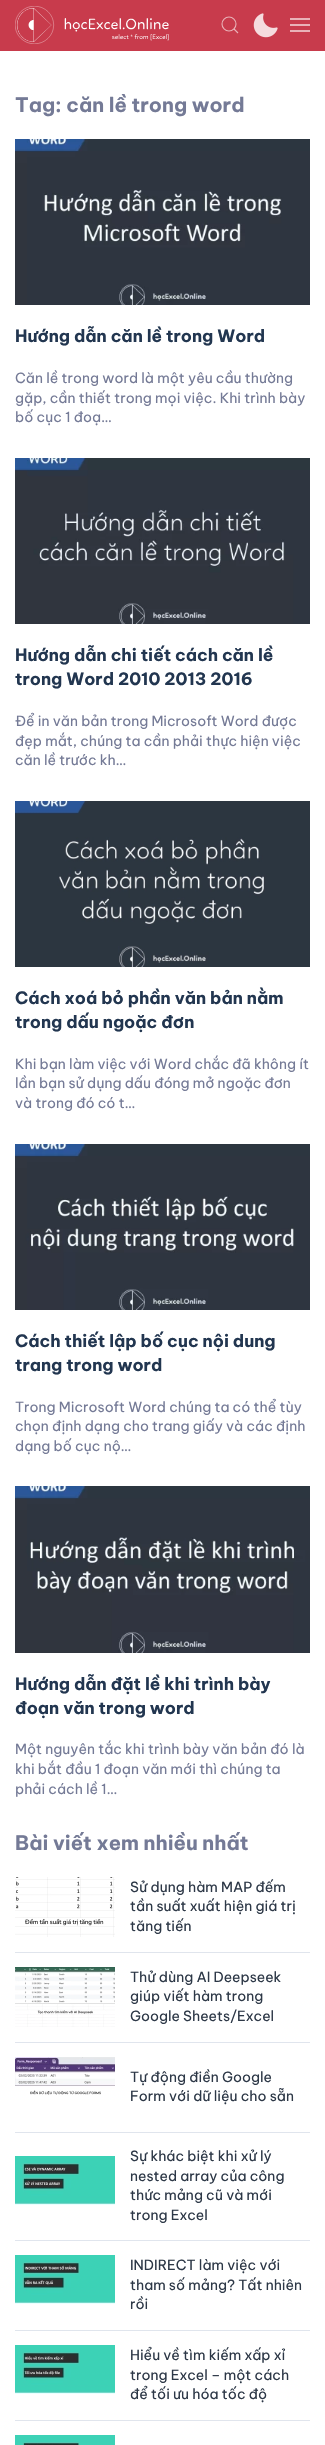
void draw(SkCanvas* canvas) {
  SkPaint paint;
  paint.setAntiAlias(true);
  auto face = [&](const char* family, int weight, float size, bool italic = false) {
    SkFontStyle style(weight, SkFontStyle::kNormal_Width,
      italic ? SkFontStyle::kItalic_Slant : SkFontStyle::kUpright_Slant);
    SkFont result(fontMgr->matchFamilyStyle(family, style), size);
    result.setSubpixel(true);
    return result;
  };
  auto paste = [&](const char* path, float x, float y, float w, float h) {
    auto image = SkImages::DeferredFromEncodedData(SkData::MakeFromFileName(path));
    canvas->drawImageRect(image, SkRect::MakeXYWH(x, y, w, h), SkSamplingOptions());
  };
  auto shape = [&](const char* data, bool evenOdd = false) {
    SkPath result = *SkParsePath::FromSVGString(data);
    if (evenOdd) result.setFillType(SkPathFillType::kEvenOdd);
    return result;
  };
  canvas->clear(0xffffffff);
  paint.setColor(0xffc83b4c);
  canvas->drawRect(SkRect::MakeXYWH(0, 0, 325, 51), paint);
  paste("img/1.png", 15, 6, 154, 38);
  paint.setStroke(true);
  paint.setStrokeWidth(1.1f);
  paint.setColor(0xffe9b1b7);
  canvas->drawCircle(229, 24, 7, paint);
  paint.setColor(0x99ffffff);
  canvas->drawPath(shape("M234 29L238 33Z"), paint);
  paste("img/2.png", 253, 13, 25, 25);
  paint.setStroke(false);
  {
    const struct { float x, y, w, h; SkColor color; } items[] = {
      {290, 18, 20, 2, 0xffe9b1b7},
      {290, 24, 20, 2, 0xffe9b1b7},
      {290, 30, 20, 2, 0xffe9b1b7},
    };
    for (auto [x, y, w, h, color] : items) {
      paint.setColor(color);
      canvas->drawRect(SkRect::MakeXYWH(x, y, w, h), paint);
    }
  }
  paste("img/3.png", 15, 139, 295, 166);
  paste("img/4.png", 15, 458, 295, 166);
  paste("img/5.png", 15, 801, 295, 166);
  paste("img/6.png", 15, 1144, 295, 166);
  paste("img/7.png", 15, 1486, 295, 167);
  paste("img/8.png", 15, 1877, 100, 60);
  paint.setColor(0xffe0e5ed);
  canvas->drawRect(SkRect::MakeXYWH(15, 1952, 295, 1), paint);
  paste("img/9.png", 15, 1967, 100, 60);
  canvas->drawRect(SkRect::MakeXYWH(15, 2042, 295, 1), paint);
  paste("img/10.png", 15, 2057, 100, 38);
  canvas->drawRect(SkRect::MakeXYWH(15, 2132, 295, 1), paint);
  paste("img/11.png", 15, 2156, 100, 49);
  canvas->drawRect(SkRect::MakeXYWH(15, 2240, 295, 1), paint);
  paste("img/12.png", 15, 2255, 100, 49);
  canvas->drawRect(SkRect::MakeXYWH(15, 2330, 295, 1), paint);
  paste("img/13.png", 15, 2345, 100, 49);
  canvas->drawRect(SkRect::MakeXYWH(15, 2420, 295, 1), paint);
  paste("img/14.png", 15, 2435, 100, 10);
  auto f0 = face("Be Vietnam Pro", 700, 20);
  paint.setColor(0xff747a96);
  canvas->drawString("Tag: căn lề trong word", 15, 112, f0, paint);
  auto f1 = face("Be Vietnam Pro", 700, 17);
  paint.setColor(0xff223650);
  canvas->drawString("Hướng dẫn căn lề trong Word", 15, 342, f1, paint);
  auto f2 = face("Be Vietnam Pro", 400, 14);
  paint.setColor(0xff747a96);
  {
    const struct { const char* s; float x, y; } items[] = {
      {"Căn lề trong word là một yêu cầu thường", 15, 383},
      {"gặp, cần thiết trong mọi việc. Khi trình bày", 15, 403},
      {"bố cục 1 đoạ…", 15, 422},
    };
    for (auto [s, x, y] : items) {
      canvas->drawString(s, x, y, f2, paint);
    }
  }
  paint.setColor(0xff223650);
  canvas->drawString("Hướng dẫn chi tiết cách căn lề", 15, 661, f1, paint);
  canvas->drawString("trong Word 2010 2013 2016", 15, 685, f1, paint);
  paint.setColor(0xff747a96);
  {
    const struct { const char* s; float x, y; } items[] = {
      {"Để in văn bản trong Microsoft Word được", 15, 726},
      {"đẹp mắt, chúng ta cần phải thực hiện việc", 15, 746},
      {"căn lề trước kh…", 15, 765},
    };
    for (auto [s, x, y] : items) {
      canvas->drawString(s, x, y, f2, paint);
    }
  }
  paint.setColor(0xff223650);
  canvas->drawString("Cách xoá bỏ phần văn bản nằm", 15, 1004, f1, paint);
  canvas->drawString("trong dấu ngoặc đơn", 15, 1028, f1, paint);
  paint.setColor(0xff747a96);
  {
    const struct { const char* s; float x, y; } items[] = {
      {"Khi bạn làm việc với Word chắc đã không ít", 15, 1069},
      {"lần bạn sử dụng dấu đóng mở ngoặc đơn", 15, 1088},
      {"và trong đó có t…", 15, 1108},
    };
    for (auto [s, x, y] : items) {
      canvas->drawString(s, x, y, f2, paint);
    }
  }
  paint.setColor(0xff223650);
  canvas->drawString("Cách thiết lập bố cục nội dung", 15, 1347, f1, paint);
  canvas->drawString("trang trong word", 15, 1371, f1, paint);
  paint.setColor(0xff747a96);
  {
    const struct { const char* s; float x, y; } items[] = {
      {"Trong Microsoft Word chúng ta có thể tùy", 15, 1412},
      {"chọn định dạng cho trang giấy và các định", 15, 1431},
      {"dạng bố cục nộ…", 15, 1451},
    };
    for (auto [s, x, y] : items) {
      canvas->drawString(s, x, y, f2, paint);
    }
  }
  paint.setColor(0xff223650);
  canvas->drawString("Hướng dẫn đặt lề khi trình bày", 15, 1690, f1, paint);
  canvas->drawString("đoạn văn trong word", 15, 1714, f1, paint);
  paint.setColor(0xff747a96);
  {
    const struct { const char* s; float x, y; } items[] = {
      {"Một nguyên tắc khi trình bày văn bản đó là", 15, 1754},
      {"khi bắt đầu 1 đoạn văn mới thì chúng ta", 15, 1774},
      {"phải cách lề 1…", 15, 1794},
    };
    for (auto [s, x, y] : items) {
      canvas->drawString(s, x, y, f2, paint);
    }
  }
  canvas->drawString("Bài viết xem nhiều nhất", 15, 1850, f0, paint);
  paint.setColor(0xff2d3847);
  {
    const struct { const char* s; float x, y; } items[] = {
      {"Sử dụng hàm MAP đếm", 130, 1892},
      {"tần suất xuất hiện giá trị", 130, 1911},
      {"tăng tiến", 130, 1931},
      {"Thử dùng AI Deepseek", 130, 1982},
      {"giúp viết hàm trong", 130, 2001},
      {"Google Sheets/Excel", 130, 2021},
      {"Tự động điền Google", 130, 2082},
      {"Form với dữ liệu cho sẵn", 130, 2101},
      {"Sự khác biệt khi xử lý", 130, 2161},
      {"nested array của công", 130, 2181},
      {"thức mảng cũ và mới", 130, 2200},
      {"trong Excel", 130, 2220},
      {"INDIRECT làm việc với", 130, 2270},
      {"tham số mảng? Tất nhiên", 130, 2290},
      {"rồi", 130, 2309},
      {"Hiểu về tìm kiếm xấp xỉ", 130, 2360},
      {"trong Excel – một cách", 130, 2380},
      {"để tối ưu hóa tốc độ", 130, 2399},
    };
    for (auto [s, x, y] : items) {
      canvas->drawString(s, x, y, f2, paint);
    }
  }
}
